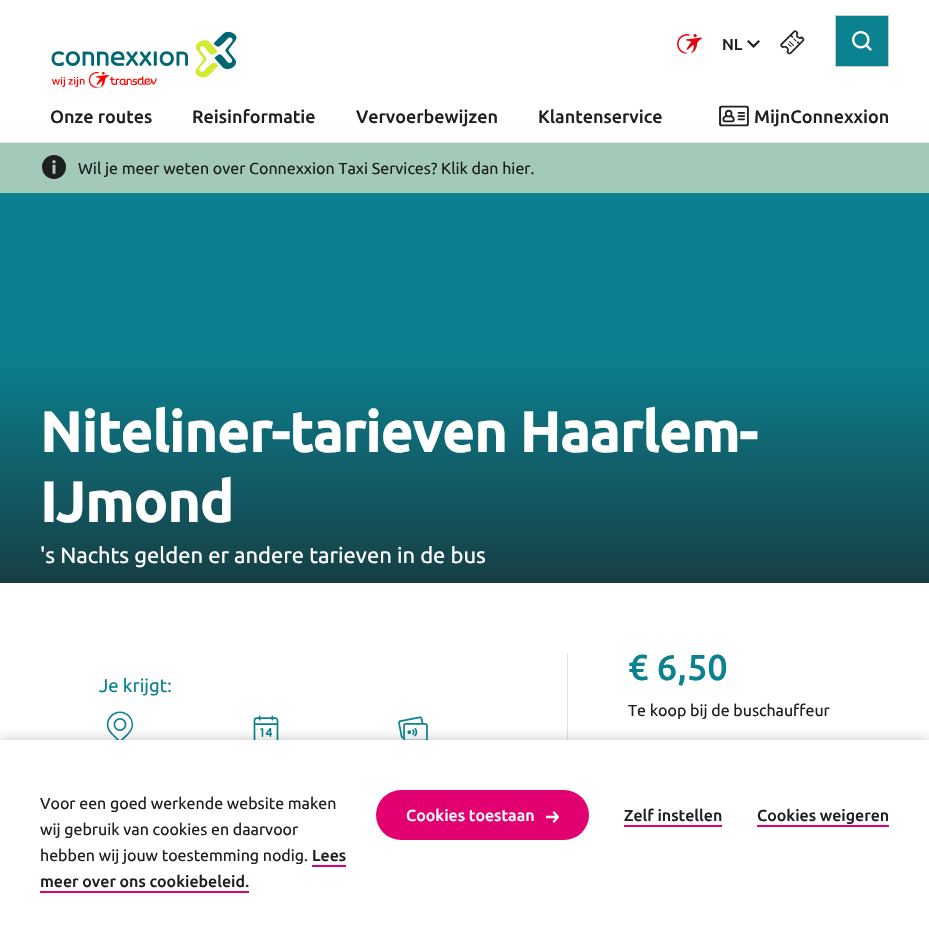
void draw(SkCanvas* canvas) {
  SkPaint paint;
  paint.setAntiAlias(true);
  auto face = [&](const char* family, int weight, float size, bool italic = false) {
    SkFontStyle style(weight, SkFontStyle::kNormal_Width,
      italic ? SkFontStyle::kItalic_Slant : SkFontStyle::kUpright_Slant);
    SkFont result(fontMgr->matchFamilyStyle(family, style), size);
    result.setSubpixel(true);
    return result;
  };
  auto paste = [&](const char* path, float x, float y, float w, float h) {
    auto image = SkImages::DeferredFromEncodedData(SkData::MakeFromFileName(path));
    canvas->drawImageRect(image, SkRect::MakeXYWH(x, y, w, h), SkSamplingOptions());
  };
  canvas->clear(0xffffffff);
  paint.setColor(0xffe2e2e2);
  canvas->drawRect(SkRect::MakeXYWH(0, 142, 929, 1), paint);
  paste("img/1.png", 677, 34, 25, 20);
  paste("img/2.png", 747, 40, 13, 8);
  paste("img/3.png", 780, 30, 25, 25);
  paint.setColor(0xff0b828f);
  canvas->drawRect(SkRect::MakeXYWH(835.5f, 15.5f, 53, 51), paint);
  paint.setStroke(true);
  paint.setStrokeWidth(1);
  paint.setColor(0xffcccccc);
  canvas->drawRect(SkRect::MakeXYWH(835.5f, 15.5f, 53, 51), paint);
  paste("img/4.png", 852, 31, 20, 20);
  paste("img/5.png", 51, 31, 186, 58);
  paste("img/6.png", 719, 105, 30, 22);
  paint.setStroke(false);
  paint.setColor(0xffa3cab8);
  canvas->drawRect(SkRect::MakeXYWH(0, 143, 929, 50), paint);
  paste("img/7.png", 42, 155, 24, 24);
  {
    const SkColor colors[] = {0xff0b8190, 0xff173f45};
    const float stops[] = {0.4f, 1};
    const SkPoint ends[] = {{465, 193}, {465, 583}};
    paint.setShader(SkGradientShader::MakeLinear(ends, colors, stops, 2, SkTileMode::kClamp));
    paint.setAlpha(255);
  }
  canvas->drawRect(SkRect::MakeXYWH(0, 193, 929, 390), paint);
  paste("img/8.png", 106, 711, 28, 29);
  paste("img/9.png", 253, 715, 26, 25);
  paste("img/10.png", 398, 716, 30, 24);
  paint.setShader(nullptr);
  paint.setColor(0xffe2e2e2);
  canvas->drawRect(SkRect::MakeXYWH(567, 653, 1, 87), paint);
  paint.setColor(0x731d1f20);
  paint.setMaskFilter(SkMaskFilter::MakeBlur(kNormal_SkBlurStyle, 7.5f));
  canvas->drawRect(SkRect::MakeXYWH(0, 744, 929, 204), paint);
  paint.setMaskFilter(nullptr);
  {
    const struct { float x, y, w, h; SkColor color; } items[] = {
      {0, 740, 929, 204, 0xffffffff},
      {312, 865, 34, 2, 0xffe20070},
      {40, 891, 209, 2, 0xffe20070},
    };
    for (auto [x, y, w, h, color] : items) {
      paint.setColor(color);
      canvas->drawRect(SkRect::MakeXYWH(x, y, w, h), paint);
    }
  }
  canvas->drawRoundRect(SkRect::MakeXYWH(376, 790, 213, 50), 25, 25, paint);
  paste("img/11.png", 546, 811, 13, 12);
  canvas->drawRect(SkRect::MakeXYWH(624, 825, 98, 2), paint);
  canvas->drawRect(SkRect::MakeXYWH(757, 825, 132, 2), paint);
  auto f0 = face("Ubuntu", 500, 16);
  paint.setColor(0xff1d1f20);
  canvas->drawString("NL", 722, 50, f0, paint);
  auto f1 = face("Ubuntu", 500, 18);
  {
    const struct { const char* s; float x, y; } items[] = {
      {"Onze routes", 50, 123},
      {"Reisinformatie", 192, 123},
      {"Vervoerbewijzen", 356, 123},
      {"Klantenservice", 538, 123},
      {"MijnConnexxion", 754, 123},
    };
    for (auto [s, x, y] : items) {
      canvas->drawString(s, x, y, f1, paint);
    }
  }
  auto f2 = face("Ubuntu", 400, 16);
  canvas->drawString("Wil je meer weten over Connexxion Taxi Services? Klik dan hier.", 78, 174, f2, paint);
  auto f3 = face("Ubuntu", 700, 56);
  paint.setColor(0xffffffff);
  canvas->drawString("Niteliner-tarieven Haarlem-", 40, 452, f3, paint);
  canvas->drawString("IJmond", 40, 522, f3, paint);
  auto f4 = face("Ubuntu", 400, 22);
  canvas->drawString("'s Nachts gelden er andere tarieven in de bus", 40, 563, f4, paint);
  auto f5 = face("Ubuntu", 400, 18.5f);
  paint.setColor(0xff0b828f);
  canvas->drawString("Je krijgt:", 99, 692, f5, paint);
  auto f6 = face("Ubuntu", 500, 36);
  canvas->drawString("€ 6,50", 628, 680, f6, paint);
  paint.setColor(0xff1d1f20);
  {
    const struct { const char* s; float x, y; } items[] = {
      {"Te koop bij de buschauffeur", 628, 716},
      {"Voor een goed werkende website maken", 40, 809},
      {"wij gebruik van cookies en daarvoor", 40, 835},
      {"hebben wij jouw toestemming nodig.", 40, 861},
    };
    for (auto [s, x, y] : items) {
      canvas->drawString(s, x, y, f2, paint);
    }
  }
  canvas->drawString("Lees", 312, 861, f0, paint);
  canvas->drawString("meer over ons cookiebeleid.", 40, 887, f0, paint);
  paint.setColor(0xffffffff);
  canvas->drawString("Cookies toestaan", 406, 821, f0, paint);
  paint.setColor(0xff1d1f20);
  canvas->drawString("Zelf instellen", 624, 821, f0, paint);
  canvas->drawString("Cookies weigeren", 757, 821, f0, paint);
}
